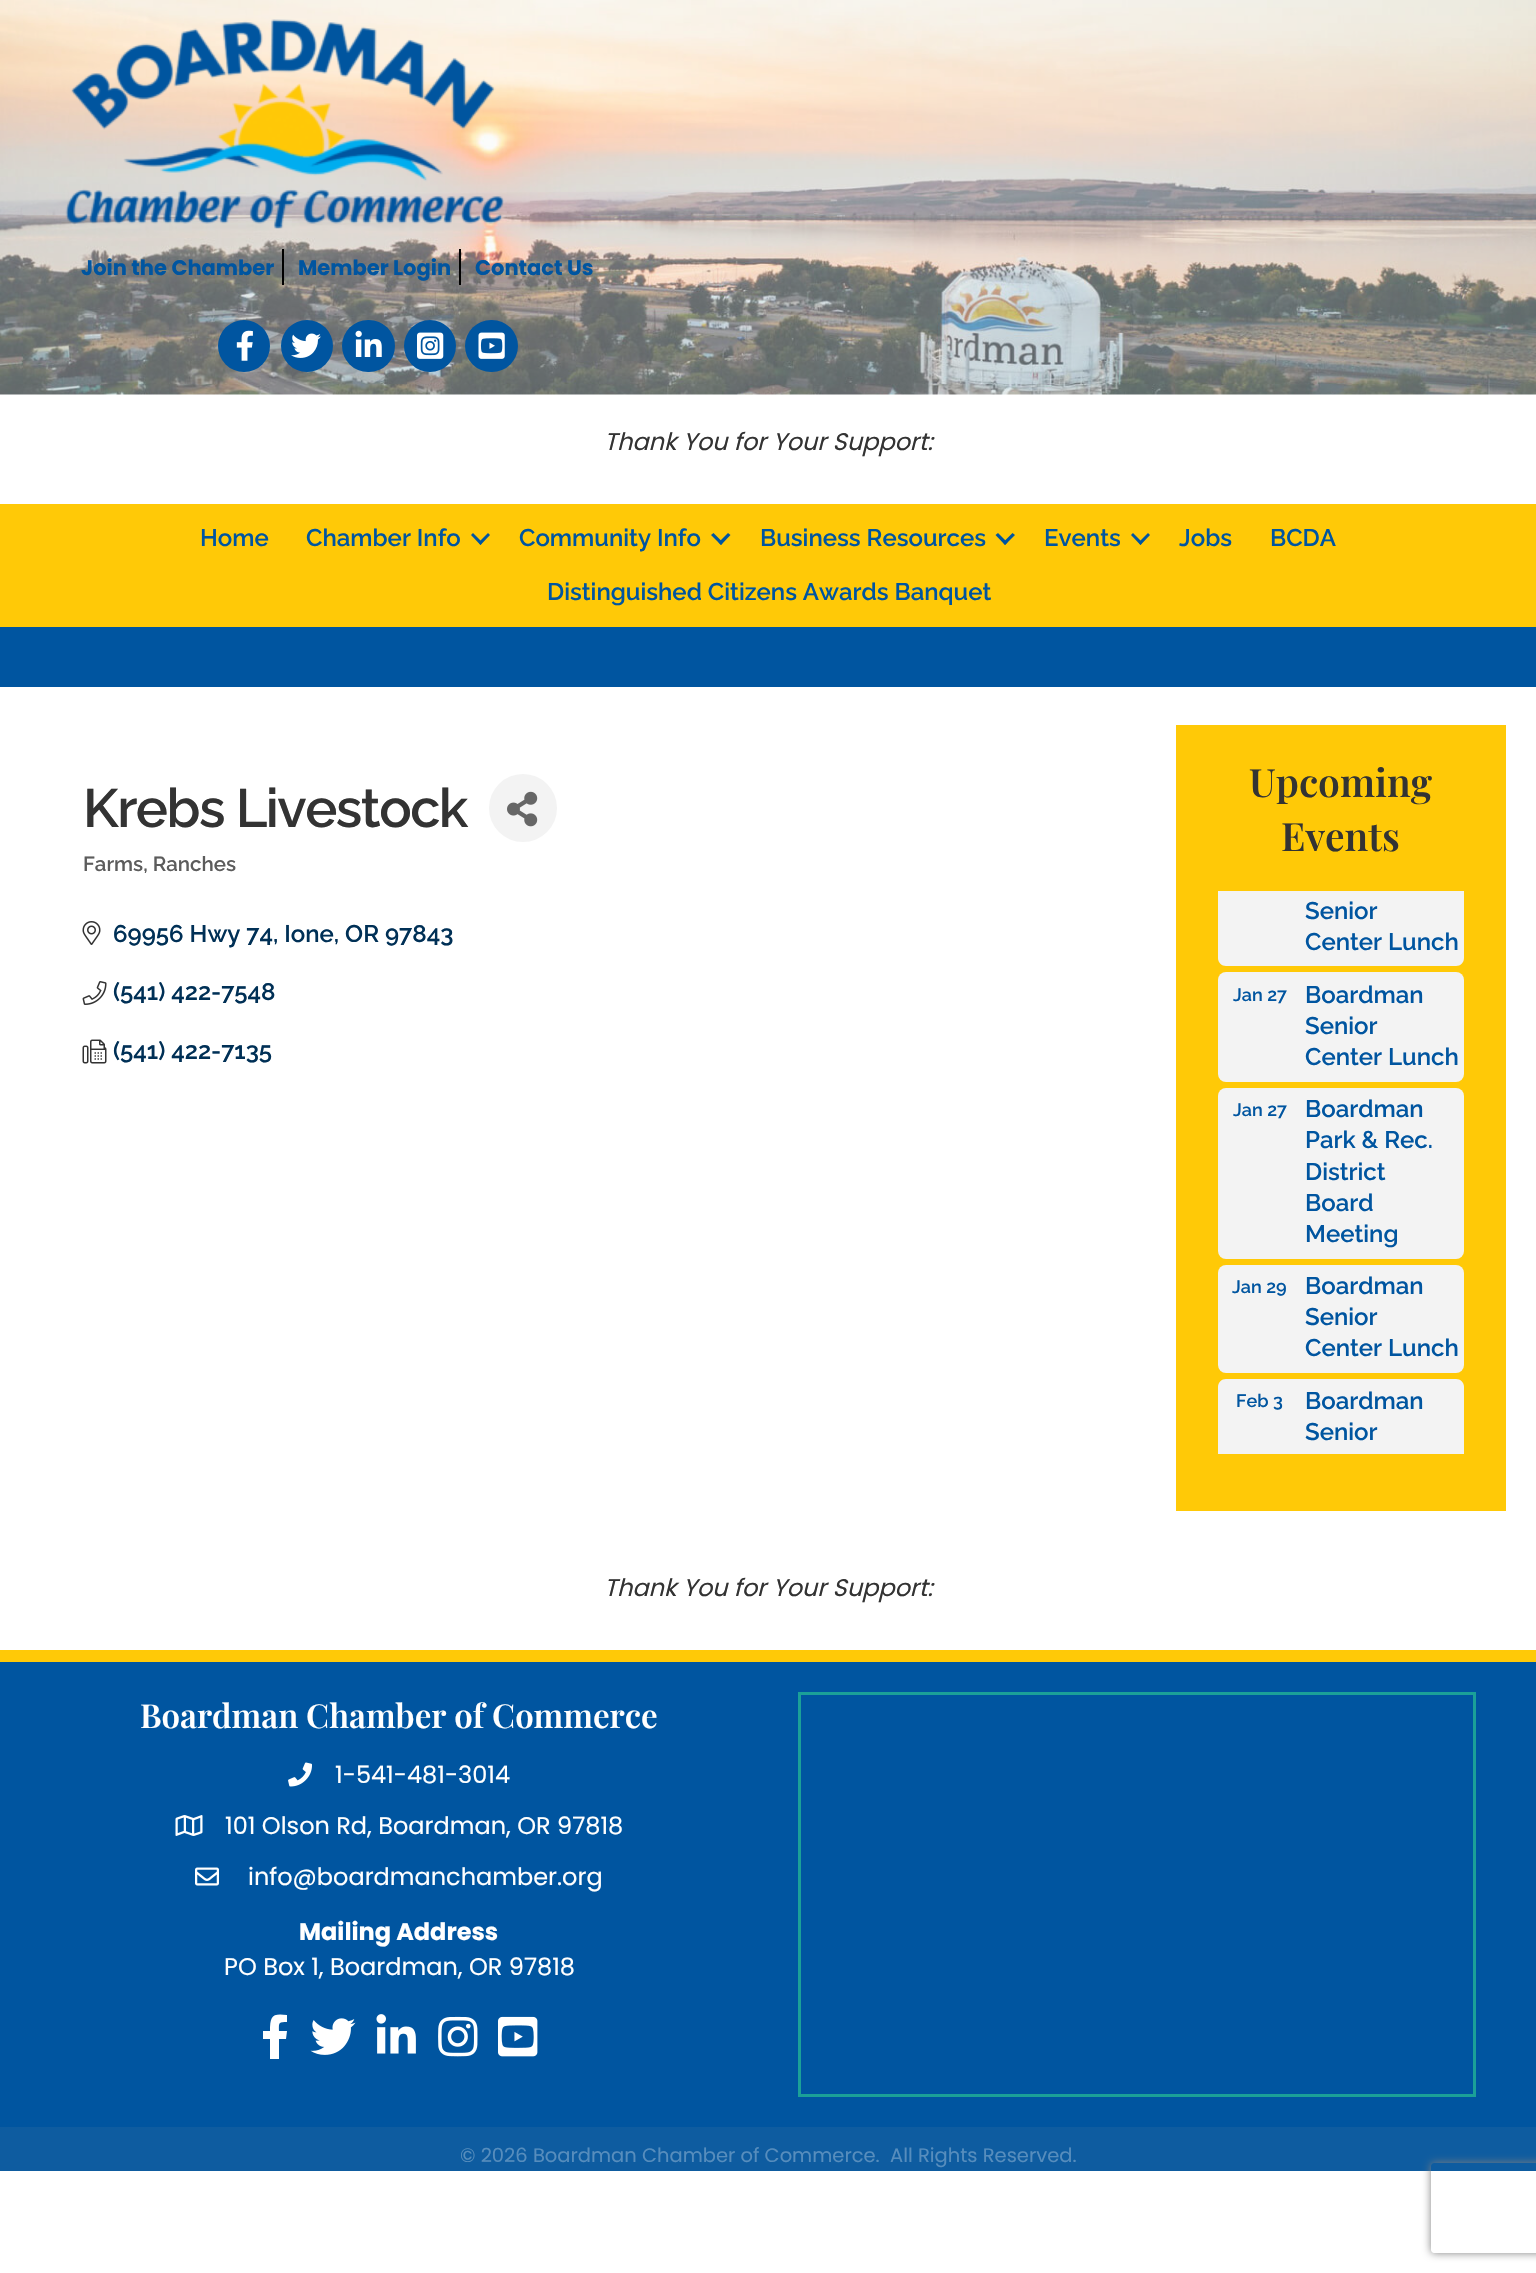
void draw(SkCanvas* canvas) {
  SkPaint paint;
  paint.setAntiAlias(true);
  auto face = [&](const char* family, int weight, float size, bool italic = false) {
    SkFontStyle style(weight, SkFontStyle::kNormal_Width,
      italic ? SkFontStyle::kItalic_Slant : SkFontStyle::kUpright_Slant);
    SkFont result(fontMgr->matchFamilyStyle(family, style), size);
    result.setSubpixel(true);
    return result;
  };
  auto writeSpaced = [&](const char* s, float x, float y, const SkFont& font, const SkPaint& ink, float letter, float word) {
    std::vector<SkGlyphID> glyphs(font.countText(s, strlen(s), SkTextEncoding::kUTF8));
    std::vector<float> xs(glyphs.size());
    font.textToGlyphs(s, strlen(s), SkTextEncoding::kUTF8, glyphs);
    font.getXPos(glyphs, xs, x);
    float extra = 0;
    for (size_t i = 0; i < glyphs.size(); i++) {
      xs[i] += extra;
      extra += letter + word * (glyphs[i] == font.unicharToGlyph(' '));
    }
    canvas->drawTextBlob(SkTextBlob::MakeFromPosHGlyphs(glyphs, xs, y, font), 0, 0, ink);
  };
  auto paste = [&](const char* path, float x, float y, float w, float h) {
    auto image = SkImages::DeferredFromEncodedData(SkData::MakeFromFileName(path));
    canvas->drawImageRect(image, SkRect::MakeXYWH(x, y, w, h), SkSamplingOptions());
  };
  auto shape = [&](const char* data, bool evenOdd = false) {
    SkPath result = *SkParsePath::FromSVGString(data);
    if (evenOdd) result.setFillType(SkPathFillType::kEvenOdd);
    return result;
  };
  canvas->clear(0xffffffff);
  paste("img/1.png", 0, 0, 1536, 395);
  paste("img/2.png", 65, 19, 439, 210);
  paint.setColor(0xff000000);
  canvas->drawRect(SkRect::MakeXYWH(282, 249, 2, 36), paint);
  canvas->drawRect(SkRect::MakeXYWH(459, 249, 2, 36), paint);
  paint.setColor(0xff0055a0);
  canvas->drawCircle(244, 346, 26, paint);
  paste("img/3.png", 236, 330, 17, 31);
  canvas->drawCircle(307, 346, 26, paint);
  paste("img/4.png", 291, 333, 30, 25);
  canvas->drawRoundRect(SkRect::MakeXYWH(342, 320, 53, 52), 26, 26, paint);
  paste("img/5.png", 355, 330, 27, 27);
  canvas->drawCircle(430, 346, 26, paint);
  paste("img/6.png", 417, 332, 27, 27);
  canvas->drawRoundRect(SkRect::MakeXYWH(465, 320, 53, 52), 26, 26, paint);
  paste("img/7.png", 478, 332, 27, 27);
  paint.setColor(0xffffc907);
  canvas->drawRect(SkRect::MakeXYWH(0, 504, 1536, 123), paint);
  paint.setColor(0xff0055a0);
  canvas->drawPath(shape("M488 533L490 535L480.5 545L478.5 542.5Z"), paint);
  canvas->drawPath(shape("M473 533L482.5 542.5L480.5 545L471 535Z"), paint);
  canvas->drawPath(shape("M728 533L730.5 535L721 545L718.5 542.5Z"), paint);
  canvas->drawPath(shape("M713.5 533L723 542.5L721 545L711 535Z"), paint);
  canvas->drawPath(shape("M1012.5 533L1015 535L1005 545L1003 542.5Z"), paint);
  canvas->drawPath(shape("M998 533L1007.5 542.5L1005 545L995.5 535Z"), paint);
  canvas->drawPath(shape("M1148 533L1150 535L1140.5 545L1138.5 542.5Z"), paint);
  canvas->drawPath(shape("M1133 533L1142.5 542.5L1140.5 545L1131 535Z"), paint);
  canvas->drawRect(SkRect::MakeXYWH(0, 627, 1536, 60), paint);
  paint.setColor(0xfff3f3f3);
  canvas->drawCircle(523, 808, 34, paint);
  paste("img/8.png", 507, 791, 31, 36);
  paste("img/9.png", 82, 921, 19, 24);
  paste("img/10.png", 82, 981, 25, 24);
  paste("img/11.png", 82, 1039, 25, 25);
  paint.setColor(0xffffc907);
  canvas->drawRect(SkRect::MakeXYWH(1176, 725, 330, 786), paint);
  paint.setColor(0xfff3f3f3);
  canvas->drawPath(shape("M1218 891H1464V958C1464 962.5 1460.5 966 1456 966H1226C1221.5 966 1218 962.5 1218 958Z"), paint);
  canvas->drawRoundRect(SkRect::MakeXYWH(1218, 972, 246, 110), 8, 8, paint);
  canvas->drawRoundRect(SkRect::MakeXYWH(1218, 1088, 246, 171), 8, 8, paint);
  canvas->drawRoundRect(SkRect::MakeXYWH(1218, 1265, 246, 108), 8, 8, paint);
  canvas->drawPath(shape("M1226 1379H1456C1460.5 1379 1464 1382.5 1464 1387V1454H1218V1387C1218 1382.5 1221.5 1379 1226 1379Z"), paint);
  paint.setColor(0xff0055a0);
  canvas->drawRect(SkRect::MakeXYWH(0, 1662, 1536, 465), paint);
  paint.setColor(0xffffc907);
  canvas->drawRect(SkRect::MakeXYWH(0, 1650, 1536, 12), paint);
  paste("img/12.png", 288, 1762, 24, 25);
  paste("img/13.png", 175, 1815, 28, 21);
  paste("img/14.png", 195, 1867, 24, 19);
  paint.setColor(0xffffffff);
  canvas->drawPath(shape("M286 2039H279V2059H270V2039H263V2031H270C270 2016 272 2013 287 2015V2022C278 2022 279 2023 279 2031H287Z"), paint);
  paste("img/15.png", 310, 2018, 46, 37);
  paste("img/16.png", 376, 2014, 40, 40);
  paste("img/17.png", 438, 2016, 40, 41);
  paste("img/18.png", 498, 2016, 40, 41);
  paint.setStroke(true);
  paint.setStrokeWidth(3);
  paint.setColor(0xff1ba098);
  canvas->drawRect(SkRect::MakeXYWH(799.5f, 1693.5f, 675, 402), paint);
  paint.setStroke(false);
  paint.setColor(0xff0e5ca0);
  canvas->drawRect(SkRect::MakeXYWH(0, 2127, 1536, 44), paint);
  canvas->save();
  canvas->clipPath(shape("M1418 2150H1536V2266H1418ZM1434 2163H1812C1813.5 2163 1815 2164.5 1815 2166V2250C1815 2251.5 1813.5 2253 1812 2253H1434C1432.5 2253 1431 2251.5 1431 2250V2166C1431 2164.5 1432.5 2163 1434 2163Z", true), true);
  paint.setColor(0xff808080);
  paint.setMaskFilter(SkMaskFilter::MakeBlur(kNormal_SkBlurStyle, 4));
  canvas->drawRoundRect(SkRect::MakeXYWH(1431, 2163, 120, 90), 3, 3, paint);
  paint.setMaskFilter(nullptr);
  canvas->restore();
  auto f0 = face("Poppins", 700, 21);
  paint.setColor(0xff0055a0);
  {
    const struct { const char* s; float x, y; } items[] = {
      {"Join the Chamber", 81, 275},
      {"Member Login", 298, 275},
      {"Contact Us", 475, 275},
    };
    for (auto [s, x, y] : items) {
      canvas->drawString(s, x, y, f0, paint);
    }
  }
  auto f1 = face("Poppins", 400, 24, true);
  paint.setColor(0xff333333);
  canvas->drawString("Thank You for Your Support:", 604, 450, f1, paint);
  auto f2 = face("Raleway", 100, 24);
  paint.setColor(0xff0055a0);
  {
    const struct { const char* s; float x, y; } items[] = {
      {"Home", 200, 546},
      {"Chamber Info", 306, 546},
      {"Community Info", 519, 546},
      {"Business Resources", 760, 546},
      {"Events", 1044, 546},
      {"Jobs", 1179, 546},
      {"BCDA", 1270, 546},
      {"Distinguished Citizens Awards Banquet", 547, 600},
    };
    for (auto [s, x, y] : items) {
      canvas->drawString(s, x, y, f2, paint);
    }
  }
  auto f3 = face("Raleway", 100, 54);
  paint.setColor(0xff333333);
  writeSpaced("Krebs Livestock", 83, 827, f3, paint, -1.5f, 0);
  auto f4 = face("Raleway", 100, 20.5f);
  paint.setColor(0xff5c5c5c);
  canvas->drawString("Farms, Ranches", 83, 871, f4, paint);
  paint.setColor(0xff003056);
  {
    const struct { const char* s; float x, y; } items[] = {
      {"69956 Hwy 74, Ione, OR 97843", 113, 942},
      {"(541) 422-7548", 113, 1000},
      {"(541) 422-7135", 113, 1059},
    };
    for (auto [s, x, y] : items) {
      canvas->drawString(s, x, y, f2, paint);
    }
  }
  auto f5 = face("Playfair Display", 600, 39);
  paint.setColor(0xff333333);
  canvas->drawString("Upcoming", 1249, 797, f5, paint);
  canvas->drawString("Events", 1281, 851, f5, paint);
  paint.setColor(0xff0055a0);
  canvas->drawString("Senior", 1305, 919, f2, paint);
  canvas->drawString("Center Lunch", 1305, 950, f2, paint);
  auto f6 = face("Raleway", 100, 18);
  canvas->drawString("Jan 27", 1233, 1001, f6, paint);
  {
    const struct { const char* s; float x, y; } items[] = {
      {"Boardman", 1305, 1003},
      {"Senior", 1305, 1034},
      {"Center Lunch", 1305, 1065},
    };
    for (auto [s, x, y] : items) {
      canvas->drawString(s, x, y, f2, paint);
    }
  }
  canvas->drawString("Jan 27", 1233, 1116, f6, paint);
  {
    const struct { const char* s; float x, y; } items[] = {
      {"Boardman", 1305, 1117},
      {"Park & Rec.", 1305, 1148},
      {"District", 1305, 1180},
      {"Board", 1305, 1211},
      {"Meeting", 1305, 1242},
    };
    for (auto [s, x, y] : items) {
      canvas->drawString(s, x, y, f2, paint);
    }
  }
  canvas->drawString("Jan 29", 1232, 1293, f6, paint);
  {
    const struct { const char* s; float x, y; } items[] = {
      {"Boardman", 1305, 1294},
      {"Senior", 1305, 1325},
      {"Center Lunch", 1305, 1356},
    };
    for (auto [s, x, y] : items) {
      canvas->drawString(s, x, y, f2, paint);
    }
  }
  canvas->drawString("Feb 3", 1236, 1407, f6, paint);
  canvas->drawString("Boardman", 1305, 1409, f2, paint);
  canvas->drawString("Senior", 1305, 1440, f2, paint);
  paint.setColor(0xff333333);
  canvas->drawString("Thank You for Your Support:", 604, 1596, f1, paint);
  auto f7 = face("Playfair Display", 600, 33);
  paint.setColor(0xffffffff);
  canvas->drawString("Boardman Chamber of Commerce", 140, 1728, f7, paint);
  auto f8 = face("Poppins", 400, 24);
  {
    const struct { const char* s; float x, y; } items[] = {
      {"1-541-481-3014", 335, 1783},
      {"101 Olson Rd, Boardman, OR 97818", 225, 1834},
      {"info@boardmanchamber.org", 248, 1885},
    };
    for (auto [s, x, y] : items) {
      canvas->drawString(s, x, y, f8, paint);
    }
  }
  auto f9 = face("Poppins", 700, 24);
  canvas->drawString("Mailing Address", 299, 1940, f9, paint);
  canvas->drawString("PO Box 1, Boardman, OR 97818", 224, 1975, f8, paint);
  auto f10 = face("Poppins", 400, 19.5f);
  paint.setColor(0xff568dbd);
  canvas->drawString("© 2026 Boardman Chamber of Commerce.", 460, 2162, f10, paint);
  canvas->drawString("All Rights Reserved.", 890, 2162, f10, paint);
}
